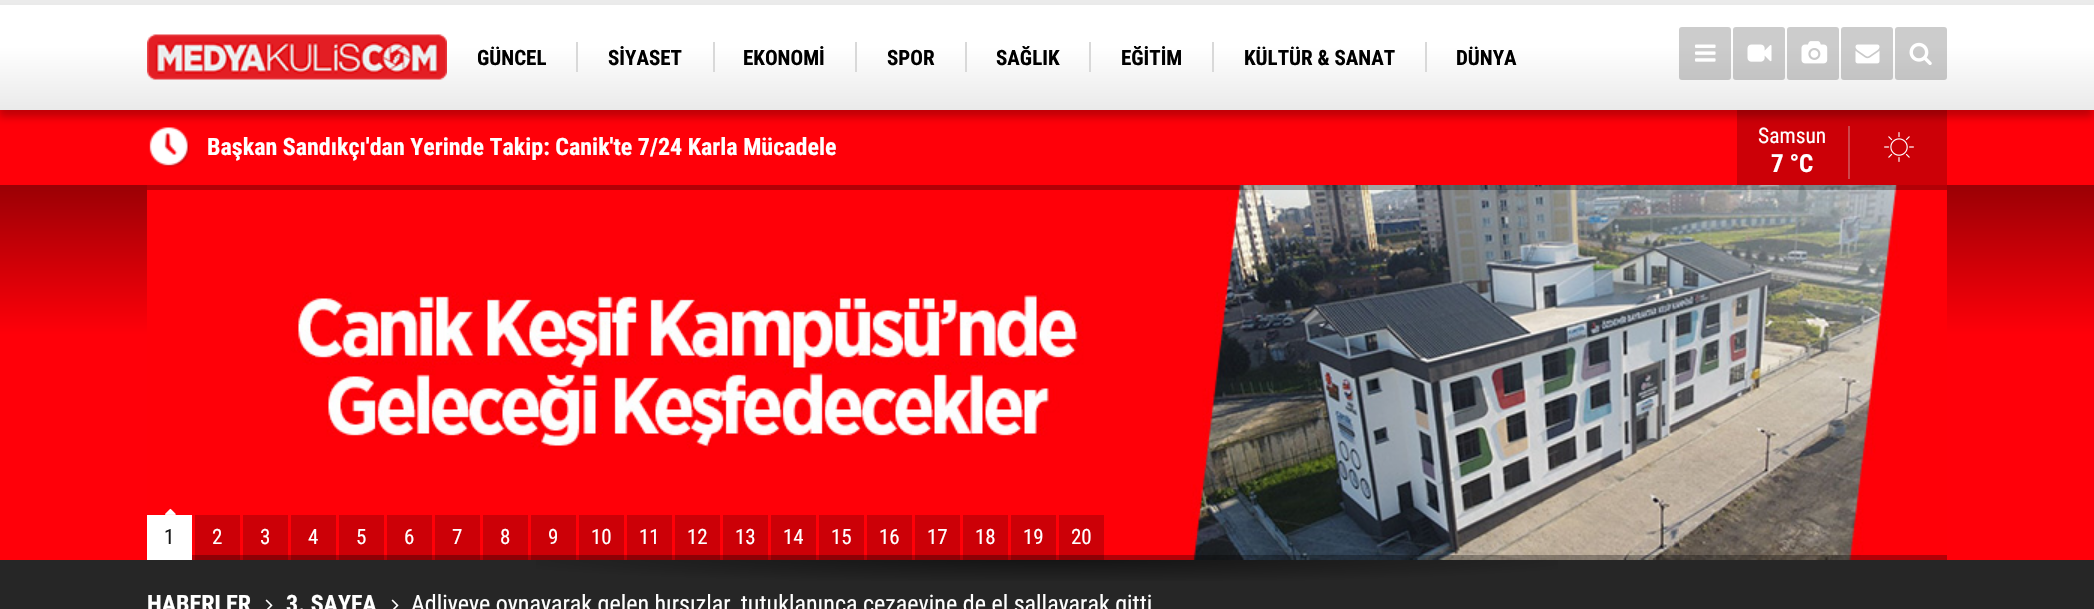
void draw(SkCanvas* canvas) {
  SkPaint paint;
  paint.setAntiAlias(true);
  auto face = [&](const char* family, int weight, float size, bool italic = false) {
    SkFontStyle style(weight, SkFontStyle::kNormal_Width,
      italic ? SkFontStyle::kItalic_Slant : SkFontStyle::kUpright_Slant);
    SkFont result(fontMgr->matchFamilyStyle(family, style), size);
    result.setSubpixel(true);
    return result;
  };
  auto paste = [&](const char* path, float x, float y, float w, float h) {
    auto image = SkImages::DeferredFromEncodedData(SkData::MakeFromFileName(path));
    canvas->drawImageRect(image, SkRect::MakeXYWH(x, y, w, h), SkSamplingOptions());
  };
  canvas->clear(0xffffffff);
  paint.setColor(0xffff0009);
  canvas->drawRect(SkRect::MakeXYWH(0, 110, 2094, 75), paint);
  paste("img/7.png", 149, 127, 41, 40);
  paint.setColor(0xffcc0007);
  canvas->drawRect(SkRect::MakeXYWH(1737, 110, 210, 75), paint);
  paint.setColor(0xffce464b);
  canvas->drawRect(SkRect::MakeXYWH(1848, 126, 2, 53), paint);
  paint.setColor(0x40000000);
  paint.setMaskFilter(SkMaskFilter::MakeBlur(kNormal_SkBlurStyle, 4));
  canvas->drawRect(SkRect::MakeXYWH(-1, 8, 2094, 109), paint);
  paint.setMaskFilter(nullptr);
  {
    const SkColor colors[] = {0xffffffff, 0xffeaeaea};
    const float stops[] = {0.4f, 1};
    const SkPoint ends[] = {{1047, -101}, {1047, 4.5f}};
    paint.setShader(SkGradientShader::MakeLinear(ends, colors, stops, 2, SkTileMode::kClamp));
    paint.setAlpha(255);
  }
  canvas->drawRect(SkRect::MakeXYWH(0, 0, 2094, 5), paint);
  {
    const SkColor colors[] = {0xffffffff, 0xffeaeaea};
    const float stops[] = {0.4f, 1};
    const SkPoint ends[] = {{1047, 4.5f}, {1047, 110}};
    paint.setShader(SkGradientShader::MakeLinear(ends, colors, stops, 2, SkTileMode::kClamp));
    paint.setAlpha(255);
  }
  canvas->drawRect(SkRect::MakeXYWH(0, 5, 2094, 105), paint);
  paste("img/1.png", 147, 34, 300, 46);
  paint.setShader(nullptr);
  {
    const struct { float x, y, w, h; SkColor color; } items[] = {
      {576, 42, 2, 30, 0xffd9d9d9},
      {713, 42, 2, 30, 0xffd9d9d9},
      {855, 42, 2, 30, 0xffd9d9d9},
      {965, 42, 2, 30, 0xffd9d9d9},
      {1089, 42, 2, 30, 0xffd9d9d9},
      {1212, 42, 2, 30, 0xffd9d9d9},
      {1425, 42, 2, 30, 0xffd9d9d9},
    };
    for (auto [x, y, w, h, color] : items) {
      paint.setColor(color);
      canvas->drawRect(SkRect::MakeXYWH(x, y, w, h), paint);
    }
  }
  paint.setColor(0x33000000);
  canvas->drawRoundRect(SkRect::MakeXYWH(1679, 27, 52, 53), 3, 3, paint);
  paste("img/2.png", 1695, 44, 21, 18);
  canvas->drawRoundRect(SkRect::MakeXYWH(1733, 27, 52, 53), 3, 3, paint);
  paste("img/3.png", 1747, 44, 25, 18);
  canvas->drawRoundRect(SkRect::MakeXYWH(1787, 27, 52, 53), 3, 3, paint);
  paste("img/4.png", 1801, 41, 27, 23);
  canvas->drawRoundRect(SkRect::MakeXYWH(1841, 27, 52, 53), 3, 3, paint);
  paste("img/5.png", 1855, 44, 25, 20);
  canvas->drawRoundRect(SkRect::MakeXYWH(1895, 27, 52, 53), 3, 3, paint);
  paste("img/6.png", 1909, 42, 23, 23);
  paste("img/8.png", 1884, 132, 30, 30);
  {
    const SkColor colors[] = {0xff9a0005, 0xffff0009, 0xffff0009};
    const float stops[] = {0, 0.4f, 1};
    const SkPoint ends[] = {{1047, 184}, {1047, 560}};
    paint.setShader(SkGradientShader::MakeLinear(ends, colors, stops, 3, SkTileMode::kClamp));
    paint.setAlpha(255);
  }
  canvas->drawRect(SkRect::MakeXYWH(0, 185, 2094, 375), paint);
  paste("img/9.png", 147, 185, 1800, 375);
  paint.setShader(nullptr);
  paint.setColor(0x4d000000);
  canvas->drawRect(SkRect::MakeXYWH(147, 185, 1800, 5), paint);
  canvas->drawRect(SkRect::MakeXYWH(192, 555, 1755, 5), paint);
  paste("img/10.png", 165, 508, 11, 7);
  {
    const struct { float x, y, w, h; SkColor color; } items[] = {
      {147, 515, 45, 45, 0xffffffff},
      {195, 515, 45, 45, 0x33000000},
      {243, 515, 45, 45, 0x33000000},
      {291, 515, 45, 45, 0x33000000},
      {339, 515, 45, 45, 0x33000000},
      {387, 515, 45, 45, 0x33000000},
      {435, 515, 45, 45, 0x33000000},
      {483, 515, 45, 45, 0x33000000},
      {531, 515, 45, 45, 0x33000000},
      {579, 515, 45, 45, 0x33000000},
      {627, 515, 45, 45, 0x33000000},
      {675, 515, 45, 45, 0x33000000},
      {723, 515, 45, 45, 0x33000000},
      {771, 515, 45, 45, 0x33000000},
      {819, 515, 45, 45, 0x33000000},
      {867, 515, 45, 45, 0x33000000},
      {915, 515, 45, 45, 0x33000000},
      {963, 515, 45, 45, 0x33000000},
      {1011, 515, 45, 45, 0x33000000},
      {1059, 515, 45, 45, 0x33000000},
      {0, 560, 2094, 49, 0xff262626},
    };
    for (auto [x, y, w, h, color] : items) {
      paint.setColor(color);
      canvas->drawRect(SkRect::MakeXYWH(x, y, w, h), paint);
    }
  }
  {
    const SkColor colors[] = {0x80000000, 0x00000000};
    const float stops[] = {0, 0.4f};
    SkMatrix m = SkMatrix::Translate(1047, 558).preScale(1481, 66);
    paint.setShader(SkGradientShader::MakeRadial({0, 0}, 1, colors, stops, 2, SkTileMode::kClamp, 0, &m));
    paint.setAlpha(255);
  }
  canvas->drawRect(SkRect::MakeXYWH(536, 560, 1022, 21), paint);
  paste("img/11.png", 265, 599, 8, 10);
  paste("img/11.png", 391, 599, 8, 10);
  auto f0 = face("Roboto Condensed", 700, 21);
  paint.setShader(nullptr);
  paint.setColor(0xff000000);
  {
    const struct { const char* s; float x, y; } items[] = {
      {"GÜNCEL", 477, 65},
      {"SİYASET", 608, 65},
      {"EKONOMİ", 743, 65},
      {"SPOR", 887, 65},
      {"SAĞLIK", 996, 65},
      {"EĞİTİM", 1121, 65},
      {"KÜLTÜR & SANAT", 1244, 65},
      {"DÜNYA", 1456, 65},
    };
    for (auto [s, x, y] : items) {
      canvas->drawString(s, x, y, f0, paint);
    }
  }
  auto f1 = face("Roboto Condensed", 700, 24);
  paint.setColor(0xffffffff);
  canvas->drawString("Başkan Sandıkçı'dan Yerinde Takip: Canik'te 7/24 Karla Mücadele", 207, 155, f1, paint);
  auto f2 = face("Roboto Condensed", 400, 21.5f);
  canvas->drawString("Samsun", 1758, 143, f2, paint);
  auto f3 = face("Roboto Condensed", 700, 25);
  canvas->drawString("7 °C", 1771, 172, f3, paint);
  auto f4 = face("Roboto Condensed", 400, 21);
  paint.setColor(0xff171717);
  canvas->drawString("1", 164, 544, f4, paint);
  paint.setColor(0xffffffff);
  {
    const struct { const char* s; float x, y; } items[] = {
      {"2", 212, 544},
      {"3", 260, 544},
      {"4", 308, 544},
      {"5", 356, 544},
      {"6", 404, 544},
      {"7", 452, 544},
      {"8", 500, 544},
      {"9", 548, 544},
      {"10", 591, 544},
      {"11", 639, 544},
      {"12", 687, 544},
      {"13", 735, 544},
      {"14", 783, 544},
      {"15", 831, 544},
      {"16", 879, 544},
      {"17", 927, 544},
      {"18", 975, 544},
      {"19", 1023, 544},
      {"20", 1071, 544},
    };
    for (auto [s, x, y] : items) {
      canvas->drawString(s, x, y, f4, paint);
    }
  }
  canvas->drawString("HABERLER", 147, 612, f1, paint);
  canvas->drawString("3. SAYFA", 286, 612, f1, paint);
  auto f5 = face("Roboto Condensed", 400, 24);
  canvas->drawString("Adliyeye oynayarak gelen hırsızlar, tutuklanınca cezaevine de el sallayarak gitti", 411, 612, f5, paint);
}
